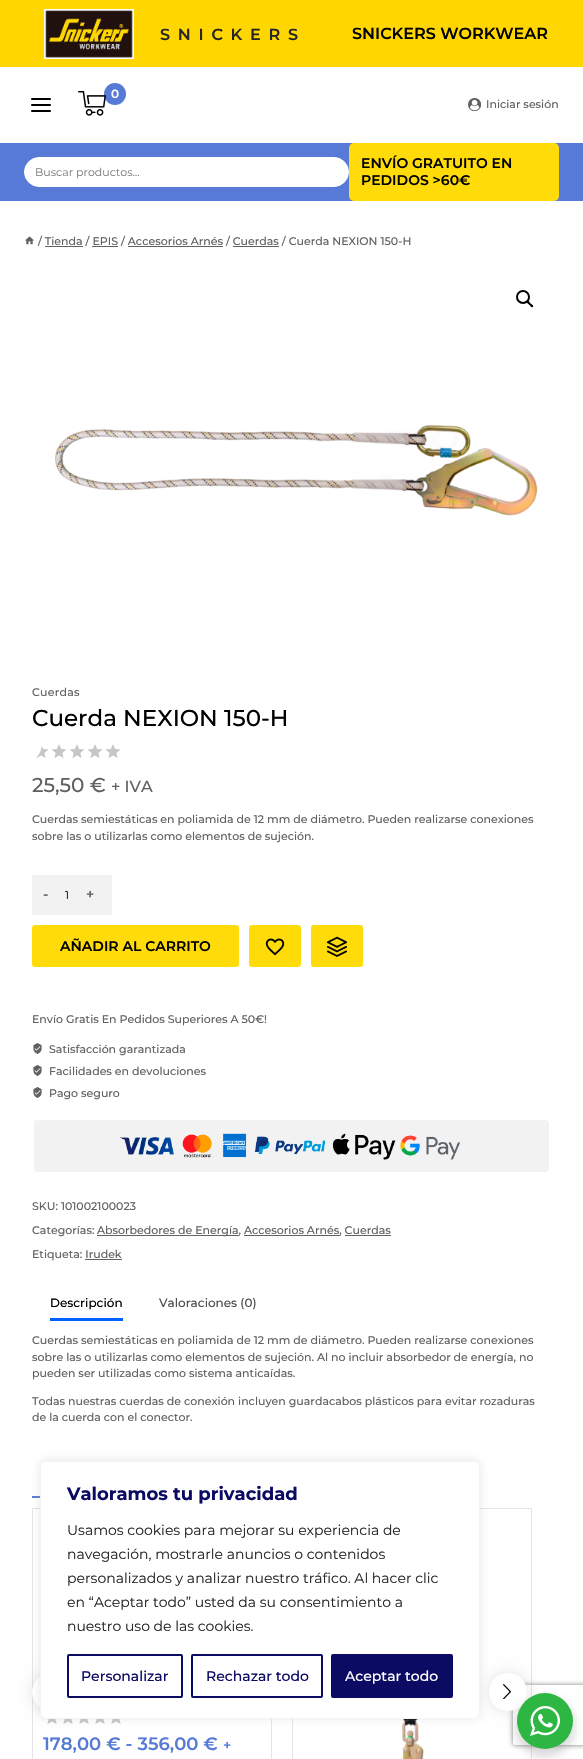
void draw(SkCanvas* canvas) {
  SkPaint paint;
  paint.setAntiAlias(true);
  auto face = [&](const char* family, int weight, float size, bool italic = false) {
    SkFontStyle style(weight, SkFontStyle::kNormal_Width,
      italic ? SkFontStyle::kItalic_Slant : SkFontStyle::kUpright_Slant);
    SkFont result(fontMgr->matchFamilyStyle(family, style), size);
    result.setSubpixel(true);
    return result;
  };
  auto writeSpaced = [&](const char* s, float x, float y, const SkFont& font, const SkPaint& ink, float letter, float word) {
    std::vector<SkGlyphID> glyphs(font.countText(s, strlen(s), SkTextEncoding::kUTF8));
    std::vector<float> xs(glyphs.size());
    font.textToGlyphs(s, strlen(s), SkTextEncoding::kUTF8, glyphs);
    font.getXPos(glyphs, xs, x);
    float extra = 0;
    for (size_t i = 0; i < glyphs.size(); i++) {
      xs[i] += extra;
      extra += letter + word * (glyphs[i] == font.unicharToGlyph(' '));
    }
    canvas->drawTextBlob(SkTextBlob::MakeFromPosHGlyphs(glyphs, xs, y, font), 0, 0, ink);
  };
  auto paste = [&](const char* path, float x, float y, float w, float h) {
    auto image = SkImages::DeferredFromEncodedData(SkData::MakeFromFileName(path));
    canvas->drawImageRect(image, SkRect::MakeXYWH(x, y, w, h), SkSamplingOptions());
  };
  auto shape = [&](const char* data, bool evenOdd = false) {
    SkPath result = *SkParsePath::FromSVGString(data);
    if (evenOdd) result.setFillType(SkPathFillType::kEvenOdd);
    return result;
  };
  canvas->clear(0xffffffff);
  paint.setColor(0xffffd600);
  canvas->drawRect(SkRect::MakeXYWH(0, 0, 583, 67), paint);
  paste("img/1.png", 44, 9, 90, 50);
  paint.setColor(0xff567ad5);
  canvas->drawCircle(115, 94, 11, paint);
  paste("img/2.png", 78, 91, 28, 25);
  paste("img/3.png", 31, 98, 20, 14);
  paste("img/4.png", 468, 98, 13, 13);
  canvas->drawRect(SkRect::MakeXYWH(0, 143, 583, 58), paint);
  paint.setColor(0xffffffff);
  canvas->drawRoundRect(SkRect::MakeXYWH(24.5f, 157.5f, 324, 29), 14.5f, 14.5f, paint);
  paint.setStroke(true);
  paint.setStrokeWidth(1);
  canvas->drawRoundRect(SkRect::MakeXYWH(24.5f, 157.5f, 324, 29), 14.5f, 14.5f, paint);
  paint.setStroke(false);
  paint.setColor(0xffffdb09);
  canvas->drawRoundRect(SkRect::MakeXYWH(349, 143, 210, 58), 5, 5, paint);
  paste("img/5.png", 25, 236, 9, 9);
  {
    const struct { float x, y, w, h; SkColor color; } items[] = {
      {45, 246, 38, 1, 0xff616161},
      {92, 246, 26, 1, 0xff616161},
      {128, 246, 95, 1, 0xff616161},
      {233, 246, 46, 1, 0xff616161},
    };
    for (auto [x, y, w, h, color] : items) {
      paint.setColor(color);
      canvas->drawRect(SkRect::MakeXYWH(x, y, w, h), paint);
    }
  }
  paint.setStroke(true);
  paint.setStrokeWidth(2);
  paint.setColor(0xff000000);
  canvas->drawCircle(523, 297, 6, paint);
  paint.setStroke(false);
  canvas->drawPath(shape("M527 301.5C528.5 300 530 303 530.5 303.5C531.5 304 534 305.5 533 307C531.5 308 530 305.5 529.5 305C528.5 304 526 302.5 527 301.5Z"), paint);
  paste("img/6.png", 55, 425, 483, 91);
  paste("img/7.png", 36, 744, 85, 14);
  paint.setColor(0xfff2f2f2);
  canvas->drawRect(SkRect::MakeXYWH(32, 875, 80, 40), paint);
  paint.setColor(0xffffdb09);
  canvas->drawRoundRect(SkRect::MakeXYWH(32, 925, 207, 42), 3, 3, paint);
  canvas->drawRoundRect(SkRect::MakeXYWH(249, 925, 52, 42), 3, 3, paint);
  paste("img/8.png", 265, 938, 20, 18);
  canvas->drawRoundRect(SkRect::MakeXYWH(311, 925, 52, 42), 3, 3, paint);
  paste("img/9.png", 327, 936, 20, 21);
  paste("img/10.png", 33, 1043, 9, 11);
  paste("img/10.png", 33, 1065, 9, 11);
  paste("img/10.png", 33, 1087, 9, 11);
  paint.setColor(0xfff2f2f2);
  canvas->drawRoundRect(SkRect::MakeXYWH(34, 1120, 515, 52), 4, 4, paint);
  paste("img/11.png", 119, 1133, 341, 27);
  {
    const struct { float x, y, w, h; SkColor color; } items[] = {
      {97, 1235, 142, 1, 0xff616161},
      {244, 1235, 96, 1, 0xff616161},
      {345, 1235, 46, 1, 0xff616161},
      {85, 1259, 37, 1, 0xff616161},
      {50, 1318, 73, 3, 0xff0060ff},
      {32, 1496, 8, 2, 0xff567ad5},
    };
    for (auto [x, y, w, h, color] : items) {
      paint.setColor(color);
      canvas->drawRect(SkRect::MakeXYWH(x, y, w, h), paint);
    }
  }
  paint.setStroke(true);
  paint.setStrokeWidth(1);
  paint.setColor(0xffe5e5e5);
  canvas->drawRect(SkRect::MakeXYWH(32.5f, 1508.5f, 239, 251), paint);
  paste("img/13.png", 47, 1719, 74, 5);
  paint.setStroke(false);
  paint.setColor(0x1c000000);
  paint.setMaskFilter(SkMaskFilter::MakeBlur(kNormal_SkBlurStyle, 8));
  canvas->drawRoundRect(SkRect::MakeXYWH(32, 1673, 38, 38), 19, 19, paint);
  paint.setMaskFilter(nullptr);
  paint.setColor(0xffffffff);
  canvas->drawCircle(51, 1692, 19, paint);
  paint.setStroke(true);
  paint.setColor(0xffe5e5e5);
  canvas->drawRect(SkRect::MakeXYWH(292.5f, 1508.5f, 239, 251), paint);
  paint.setStroke(false);
  paint.setColor(0x1c000000);
  paint.setMaskFilter(SkMaskFilter::MakeBlur(kNormal_SkBlurStyle, 8));
  canvas->drawRoundRect(SkRect::MakeXYWH(489, 1673, 38, 38), 19, 19, paint);
  paint.setMaskFilter(nullptr);
  canvas->save();
  canvas->clipPath(shape("M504 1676H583V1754H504ZM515 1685H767C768 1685 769 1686 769 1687V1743C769 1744 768 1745 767 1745H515C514 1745 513 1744 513 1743V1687C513 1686 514 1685 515 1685Z", true), true);
  paint.setColor(0xff808080);
  paint.setMaskFilter(SkMaskFilter::MakeBlur(kNormal_SkBlurStyle, 2.5f));
  canvas->drawRoundRect(SkRect::MakeXYWH(513, 1685, 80, 60), 2, 2, paint);
  paint.setMaskFilter(nullptr);
  canvas->restore();
  paint.setColor(0xffffffff);
  canvas->drawCircle(508, 1692, 19, paint);
  paste("img/12.png", 503, 1684, 8, 15);
  paste("img/14.png", 401, 1719, 23, 40);
  paint.setColor(0x4dacabab);
  paint.setMaskFilter(SkMaskFilter::MakeBlur(kNormal_SkBlurStyle, 5));
  canvas->drawRoundRect(SkRect::MakeXYWH(40, 1460, 440, 258), 6, 6, paint);
  paint.setMaskFilter(nullptr);
  paint.setColor(0xffffffff);
  canvas->drawRoundRect(SkRect::MakeXYWH(40.5f, 1461.5f, 439, 257), 5.5f, 5.5f, paint);
  paint.setStroke(true);
  paint.setColor(0xfff4f4f4);
  canvas->drawRoundRect(SkRect::MakeXYWH(40.5f, 1461.5f, 439, 257), 5.5f, 5.5f, paint);
  paint.setStrokeWidth(2);
  paint.setColor(0xff0b0b64);
  canvas->drawRoundRect(SkRect::MakeXYWH(68, 1655, 114, 42), 1, 1, paint);
  canvas->drawRoundRect(SkRect::MakeXYWH(192, 1655, 130, 42), 1, 1, paint);
  paint.setStroke(false);
  canvas->drawRoundRect(SkRect::MakeXYWH(332, 1655, 120, 42), 1, 1, paint);
  paint.setStroke(true);
  canvas->drawRoundRect(SkRect::MakeXYWH(332, 1655, 120, 42), 1, 1, paint);
  paint.setStroke(false);
  paint.setColor(0x24000000);
  paint.setMaskFilter(SkMaskFilter::MakeBlur(kNormal_SkBlurStyle, 4));
  canvas->drawRoundRect(SkRect::MakeXYWH(515, 1697, 60, 60), 30, 30, paint);
  paint.setMaskFilter(nullptr);
  paint.setColor(0xff2db742);
  canvas->drawCircle(545, 1721, 28, paint);
  paste("img/15.png", 530, 1706, 30, 30);
  auto f0 = face("Montserrat", 600, 16);
  paint.setColor(0xff262626);
  writeSpaced("SNICKERS", 160, 40, f0, paint, 7.75f, 0);
  paint.setColor(0xff000000);
  canvas->drawString("SNICKERS WORKWEAR", 352, 39, f0, paint);
  auto f1 = face("Montserrat", 600, 12);
  paint.setColor(0xffffffff);
  canvas->drawString("0", 111, 98, f1, paint);
  auto f2 = face("Montserrat", 500, 11);
  paint.setColor(0xff616161);
  canvas->drawString("Iniciar sesión", 486, 108, f2, paint);
  auto f3 = face("Montserrat", 400, 11);
  paint.setColor(0xff808080);
  canvas->drawString("Buscar productos…", 35, 176, f3, paint);
  auto f4 = face("Montserrat", 600, 14);
  paint.setColor(0xff000000);
  canvas->drawString("ENVÍO GRATUITO EN", 361, 168, f4, paint);
  canvas->drawString("PEDIDOS >60€", 361, 185, f4, paint);
  paint.setColor(0xff616161);
  canvas->drawString("/ Tienda / EPIS / Accesorios Arnés / Cuerdas / Cuerda NEXION 150-H", 38, 245, f2, paint);
  writeSpaced("Cuerdas", 32, 696, f2, paint, 0.25f, 0);
  auto f5 = face("Montserrat", 500, 23);
  paint.setColor(0xff000000);
  canvas->drawString("Cuerda NEXION 150-H", 32, 726, f5, paint);
  paint.setColor(0xffffffff);
  canvas->drawPath(shape("M.5 721.5H20C32 721.5 41.5 731 41.5 743C41.5 755 32 764.5 20 764.5H.5Z"), paint);
  paint.setStroke(true);
  paint.setStrokeWidth(1);
  canvas->drawPath(shape("M.5 721.5H20C32 721.5 41.5 731 41.5 743C41.5 755 32 764.5 20 764.5H.5Z"), paint);
  auto f6 = face("Montserrat", 500, 20);
  paint.setStroke(false);
  paint.setColor(0xff616161);
  canvas->drawString("25,50 €", 32, 792, f6, paint);
  auto f7 = face("Montserrat", 500, 16);
  canvas->drawString("+ IVA", 111, 792, f7, paint);
  canvas->drawString("Cuerdas semiestáticas en poliamida de 12 mm de diámetro. Pueden realizarse conexiones", 32, 823, f2, paint);
  canvas->drawString("sobre las o utilizarlas como elementos de sujeción.", 32, 840, f2, paint);
  canvas->drawString("-", 43, 899, f4, paint);
  paint.setColor(0xff000000);
  canvas->drawString("1", 65, 899, f3, paint);
  paint.setColor(0xff616161);
  canvas->drawString("+", 86, 899, f4, paint);
  paint.setColor(0xff000000);
  canvas->drawString("AÑADIR AL CARRITO", 60, 951, f4, paint);
  paint.setColor(0xff616161);
  {
    const struct { const char* s; float x, y; } items[] = {
      {"Envío Gratis En Pedidos Superiores A 50€!", 32, 1023},
      {"Satisfacción garantizada", 49, 1053},
      {"Facilidades en devoluciones", 49, 1075},
      {"Pago seguro", 49, 1097},
      {"SKU: 101002100023", 32, 1210},
      {"Categorías:", 32, 1234},
      {"Absorbedores de Energía, Accesorios Arnés, Cuerdas", 97, 1234},
      {"Etiqueta: Irudek", 32, 1258},
    };
    for (auto [s, x, y] : items) {
      canvas->drawString(s, x, y, f2, paint);
    }
  }
  auto f8 = face("Montserrat", 500, 12);
  paint.setColor(0xff000000);
  canvas->drawString("Descripción", 50, 1307, f8, paint);
  paint.setColor(0xff4d4d4d);
  canvas->drawString("Valoraciones (0)", 159, 1307, f8, paint);
  paint.setColor(0xff616161);
  {
    const struct { const char* s; float x, y; } items[] = {
      {"Cuerdas semiestáticas en poliamida de 12 mm de diámetro. Pueden realizarse conexiones", 32, 1344},
      {"sobre las o utilizarlas como elementos de sujeción. Al no incluir absorbedor de energía, no", 32, 1361},
      {"pueden ser utilizadas como sistema anticaídas.", 32, 1377},
      {"Todas nuestras cuerdas de conexión incluyen guardacabos plásticos para evitar rozaduras", 32, 1405},
      {"de la cuerda con el conector.", 32, 1421},
    };
    for (auto [s, x, y] : items) {
      canvas->drawString(s, x, y, f2, paint);
    }
  }
  auto f9 = face("Montserrat", 600, 18);
  paint.setColor(0xff567ad5);
  canvas->drawString("178,00 € - 356,00 €", 43, 1750, f9, paint);
  canvas->drawString("+", 223, 1750, f4, paint);
  auto f10 = face("Montserrat", 700, 18);
  paint.setColor(0xff0b0b64);
  canvas->drawString("Valoramos tu privacidad", 67, 1500, f10, paint);
  auto f11 = face("Montserrat", 400, 14);
  paint.setColor(0xff262626);
  {
    const struct { const char* s; float x, y; } items[] = {
      {"Usamos cookies para mejorar su experiencia de", 67, 1535},
      {"navegación, mostrarle anuncios o contenidos", 67, 1559},
      {"personalizados y analizar nuestro tráfico. Al hacer clic", 67, 1583},
      {"en “Aceptar todo” usted da su consentimiento a", 67, 1607},
      {"nuestro uso de las cookies.", 67, 1631},
    };
    for (auto [s, x, y] : items) {
      canvas->drawString(s, x, y, f11, paint);
    }
  }
  auto f12 = face("Montserrat", 500, 14);
  paint.setColor(0xff0b0b64);
  canvas->drawString("Personalizar", 81, 1681, f12, paint);
  canvas->drawString("Rechazar todo", 206, 1681, f12, paint);
  paint.setColor(0xffffffff);
  canvas->drawString("Aceptar todo", 345, 1681, f12, paint);
}
